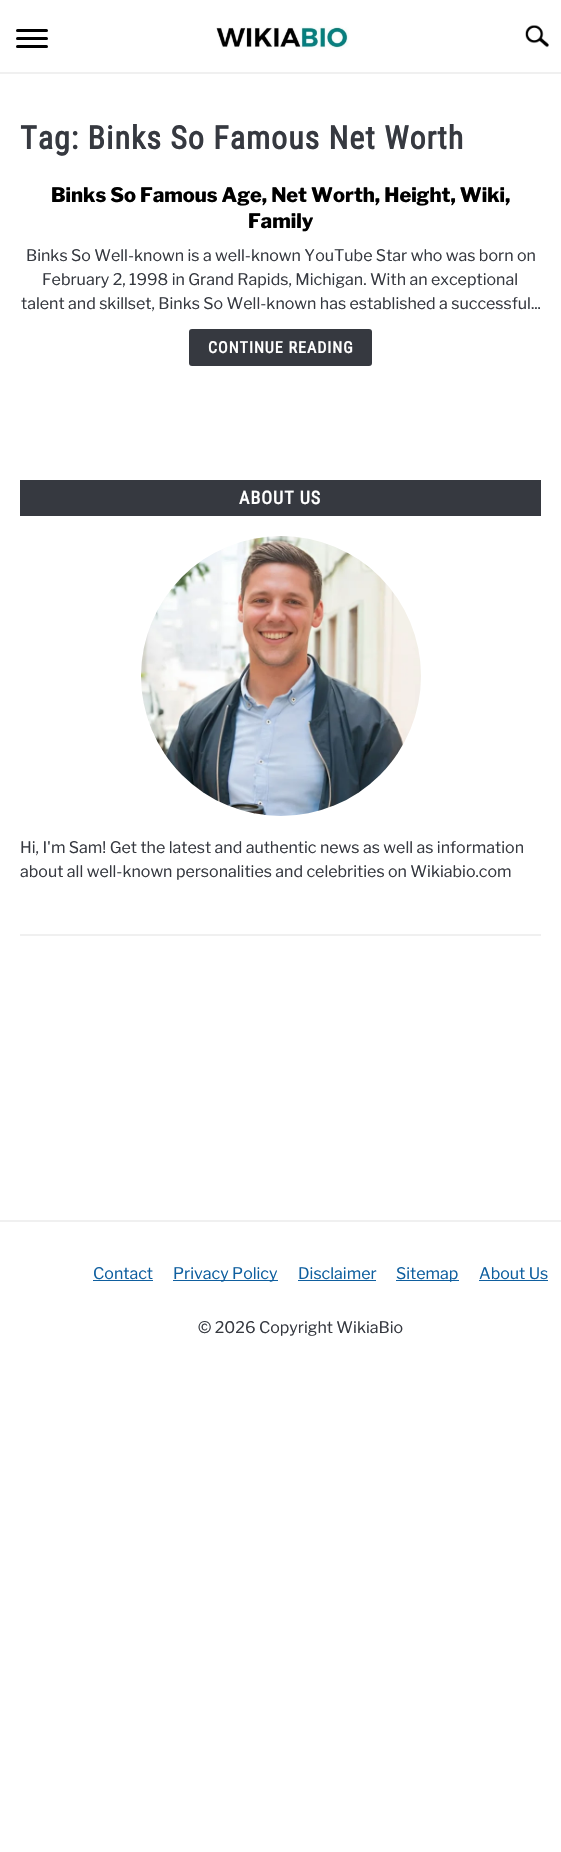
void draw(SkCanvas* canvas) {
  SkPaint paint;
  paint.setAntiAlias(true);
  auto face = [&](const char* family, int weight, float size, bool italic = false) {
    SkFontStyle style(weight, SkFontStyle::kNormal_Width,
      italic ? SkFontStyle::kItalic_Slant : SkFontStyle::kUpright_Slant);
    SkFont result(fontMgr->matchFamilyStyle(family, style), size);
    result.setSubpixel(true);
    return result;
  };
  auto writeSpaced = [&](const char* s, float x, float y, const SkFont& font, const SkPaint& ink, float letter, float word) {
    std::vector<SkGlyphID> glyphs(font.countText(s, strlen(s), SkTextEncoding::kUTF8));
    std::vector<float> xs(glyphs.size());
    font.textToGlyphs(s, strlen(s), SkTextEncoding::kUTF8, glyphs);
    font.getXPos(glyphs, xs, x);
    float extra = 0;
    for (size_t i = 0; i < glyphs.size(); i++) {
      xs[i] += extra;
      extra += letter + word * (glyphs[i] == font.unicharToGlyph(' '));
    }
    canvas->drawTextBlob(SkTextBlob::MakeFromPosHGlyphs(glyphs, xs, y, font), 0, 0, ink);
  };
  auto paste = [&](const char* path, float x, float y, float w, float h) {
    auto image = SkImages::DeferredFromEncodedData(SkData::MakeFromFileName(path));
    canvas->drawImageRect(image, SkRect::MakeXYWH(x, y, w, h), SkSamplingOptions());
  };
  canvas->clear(0xffffffff);
  paint.setColor(0xff000000);
  canvas->drawRoundRect(SkRect::MakeXYWH(16, 37, 32, 3), 1.5f, 1.5f, paint);
  canvas->drawRoundRect(SkRect::MakeXYWH(16, 29, 32, 3), 1.5f, 1.5f, paint);
  canvas->drawRoundRect(SkRect::MakeXYWH(16, 45, 32, 3), 1.5f, 1.5f, paint);
  paste("img/1.png", 216, 26, 133, 24);
  paste("img/2.png", 525, 25, 24, 23);
  paint.setColor(0xfff0f0f0);
  canvas->drawRect(SkRect::MakeXYWH(0, 72, 561, 2), paint);
  paint.setColor(0xff363940);
  canvas->drawRoundRect(SkRect::MakeXYWH(189, 329, 183, 37), 3, 3, paint);
  canvas->drawRect(SkRect::MakeXYWH(20, 480, 521, 36), paint);
  paste("img/3.png", 141, 536, 280, 280);
  {
    const struct { float x, y, w, h; SkColor color; } items[] = {
      {20, 934, 521, 2, 0xfff0f0f0},
      {0, 1220, 561, 2, 0xfff0f0f0},
      {93, 1280, 60, 1, 0xff0f5f9f},
      {173, 1280, 105, 1, 0xff0f5f9f},
      {298, 1280, 78, 1, 0xff0f5f9f},
      {396, 1280, 63, 1, 0xff0f5f9f},
      {479, 1280, 69, 1, 0xff0f5f9f},
    };
    for (auto [x, y, w, h, color] : items) {
      paint.setColor(color);
      canvas->drawRect(SkRect::MakeXYWH(x, y, w, h), paint);
    }
  }
  auto f0 = face("Roboto Condensed", 700, 32);
  paint.setColor(0xff363940);
  writeSpaced("Tag: Binks So Famous Net Worth", 20, 149, f0, paint, 1, 0);
  auto f1 = face("Libre Franklin", 800, 20);
  paint.setColor(0xff000000);
  canvas->drawString("Binks So Famous Age, Net Worth, Height, Wiki,", 51, 202, f1, paint);
  canvas->drawString("Family", 248, 228, f1, paint);
  auto f2 = face("Libre Franklin", 400, 16);
  paint.setColor(0xff363940);
  {
    const struct { const char* s; float x, y; } items[] = {
      {"Binks So Well-known is a well-known YouTube Star who was born on", 26, 261},
      {"February 2, 1998 in Grand Rapids, Michigan. With an exceptional", 42, 285},
      {"talent and skillset, Binks So Well-known has established a successful...", 21, 309},
    };
    for (auto [s, x, y] : items) {
      canvas->drawString(s, x, y, f2, paint);
    }
  }
  auto f3 = face("Roboto Condensed", 700, 16);
  paint.setColor(0xffffffff);
  writeSpaced("CONTINUE READING", 208, 353, f3, paint, 1, 0);
  auto f4 = face("Roboto Condensed", 700, 18);
  writeSpaced("ABOUT US", 239, 504, f4, paint, 1, 0);
  paint.setColor(0xff363940);
  canvas->drawString("Hi, I'm Sam! Get the latest and authentic news as well as information", 20, 853, f2, paint);
  canvas->drawString("about all well-known personalities and celebrities on Wikiabio.com", 20, 877, f2, paint);
  paint.setColor(0xff0f5f9f);
  {
    const struct { const char* s; float x, y; } items[] = {
      {"Contact", 93, 1279},
      {"Privacy Policy", 173, 1279},
      {"Disclaimer", 298, 1279},
      {"Sitemap", 396, 1279},
      {"About Us", 479, 1279},
    };
    for (auto [s, x, y] : items) {
      canvas->drawString(s, x, y, f2, paint);
    }
  }
  paint.setColor(0xff363940);
  canvas->drawString("© 2026 Copyright WikiaBio", 198, 1333, f2, paint);
}
